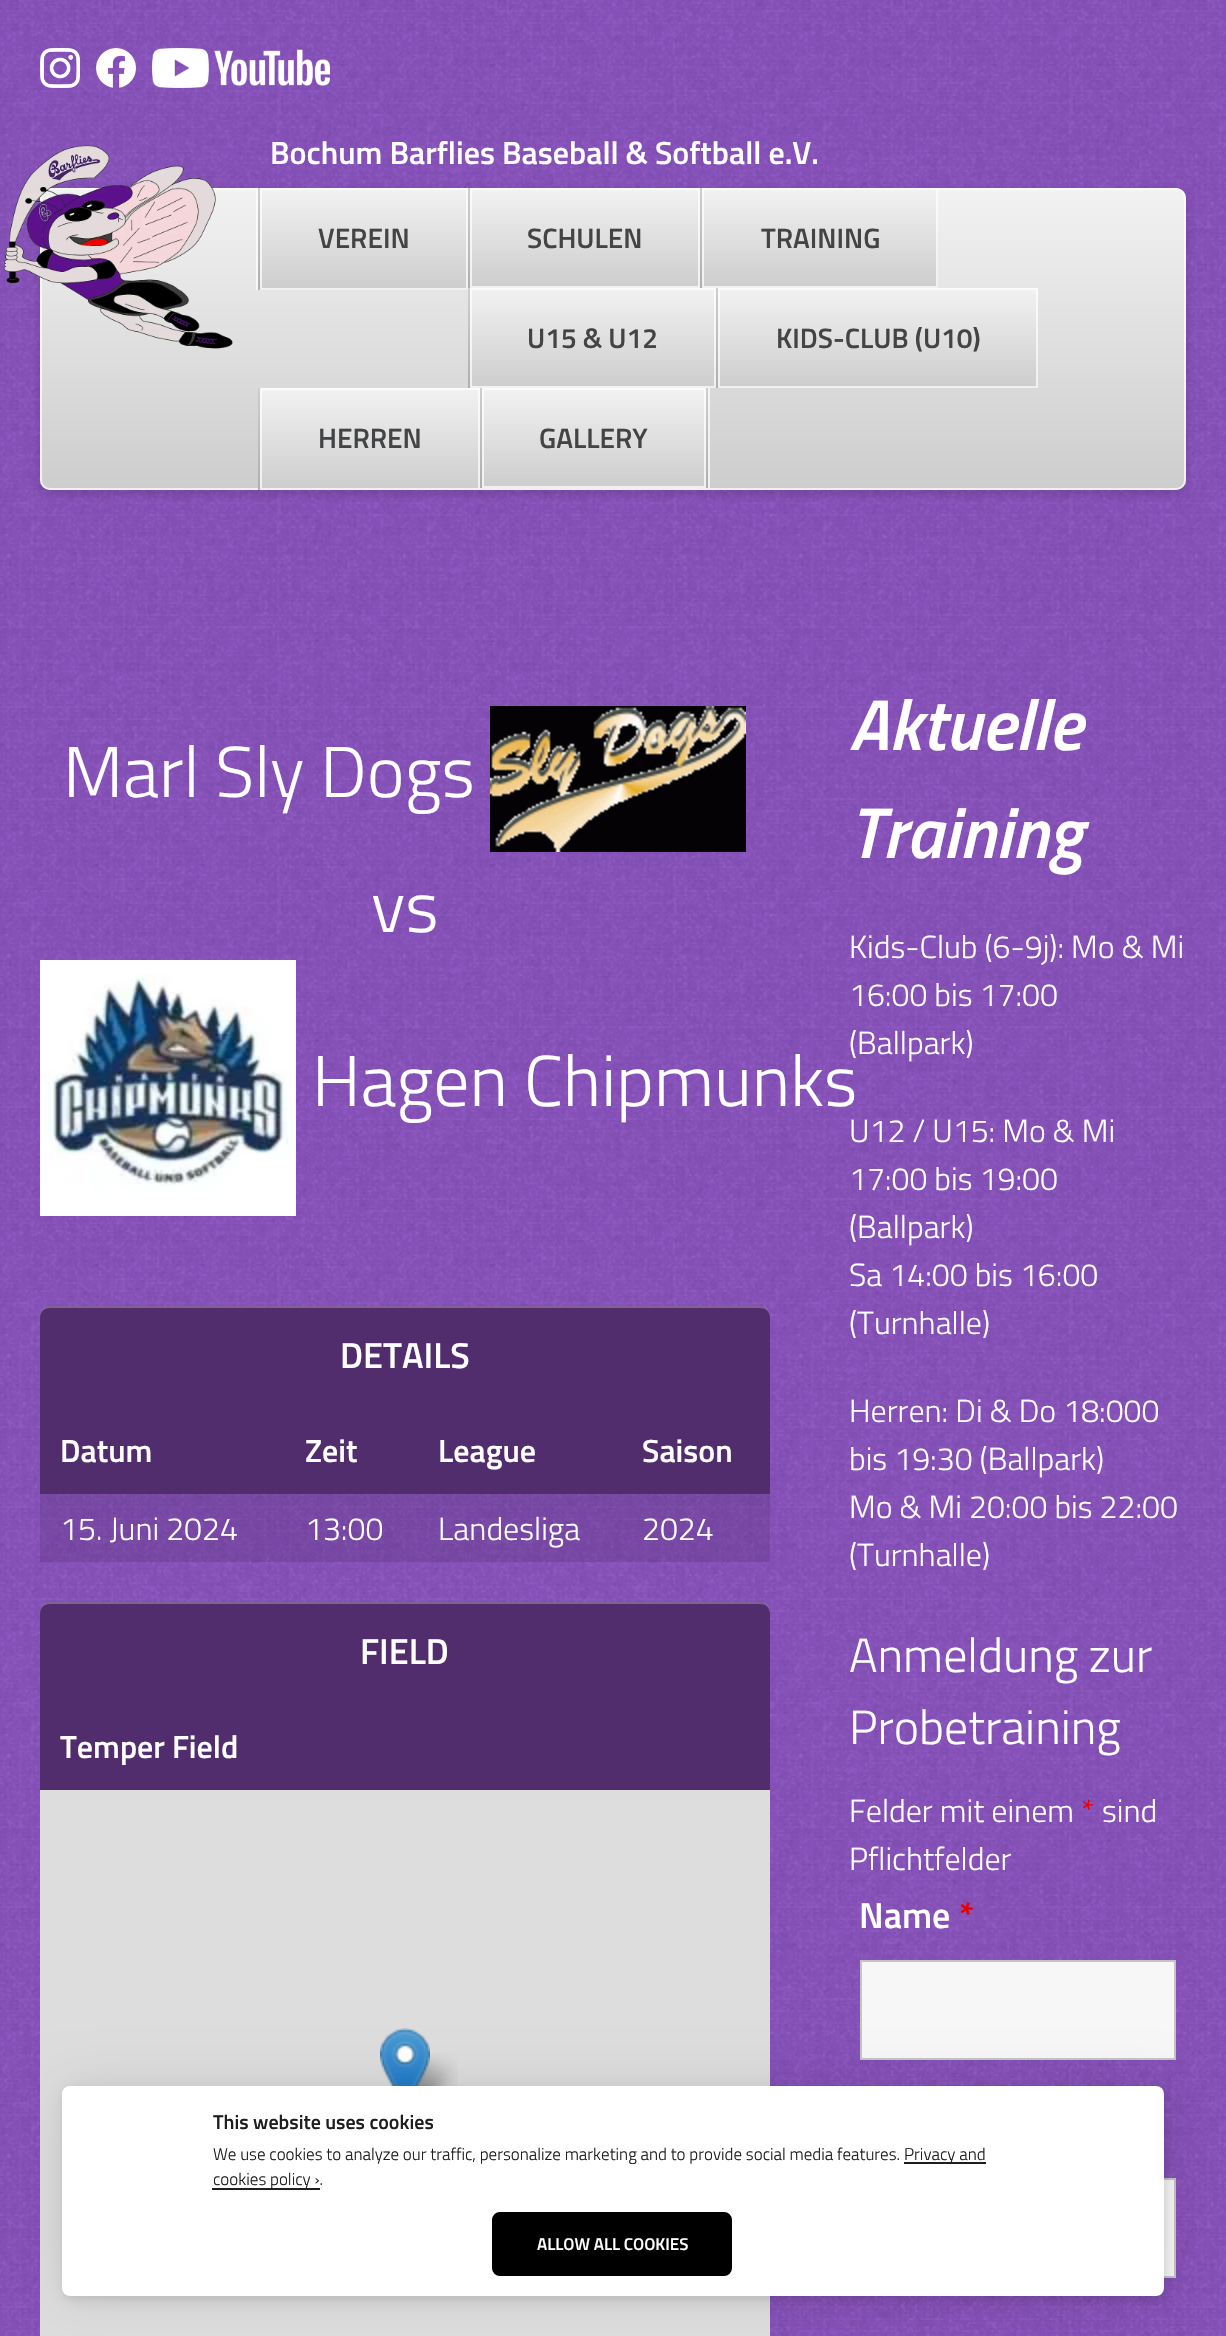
void draw(SkCanvas* canvas) {
  SkPaint paint;
  paint.setAntiAlias(true);
  auto face = [&](const char* family, int weight, float size, bool italic = false) {
    SkFontStyle style(weight, SkFontStyle::kNormal_Width,
      italic ? SkFontStyle::kItalic_Slant : SkFontStyle::kUpright_Slant);
    SkFont result(fontMgr->matchFamilyStyle(family, style), size);
    result.setSubpixel(true);
    return result;
  };
  auto paste = [&](const char* path, float x, float y, float w, float h) {
    auto image = SkImages::DeferredFromEncodedData(SkData::MakeFromFileName(path));
    canvas->drawImageRect(image, SkRect::MakeXYWH(x, y, w, h), SkSamplingOptions());
  };
  auto shape = [&](const char* data, bool evenOdd = false) {
    SkPath result = *SkParsePath::FromSVGString(data);
    if (evenOdd) result.setFillType(SkPathFillType::kEvenOdd);
    return result;
  };
  canvas->clear(0xff8e56c4);
  paste("img/1.png", 0, 0, 1226, 2336);
  paste("img/2.png", 40, 48, 40, 40);
  paste("img/3.png", 96, 48, 40, 40);
  paste("img/4.png", 152, 48, 178, 40);
  paint.setColor(0x26000000);
  paint.setMaskFilter(SkMaskFilter::MakeBlur(kNormal_SkBlurStyle, 4));
  canvas->drawRoundRect(SkRect::MakeXYWH(40, 192, 1146, 302), 10, 10, paint);
  paint.setMaskFilter(nullptr);
  {
    const SkColor colors[] = {0xfff2f2f2, 0xffcdcdcd};
    const float stops[] = {0, 1};
    const SkPoint ends[] = {{613, 188}, {613, 490}};
    paint.setShader(SkGradientShader::MakeLinear(ends, colors, stops, 2, SkTileMode::kClamp));
    paint.setAlpha(255);
  }
  canvas->drawRoundRect(SkRect::MakeXYWH(40, 188, 1146, 302), 10, 10, paint);
  paint.setStroke(true);
  paint.setStrokeWidth(2);
  paint.setShader(nullptr);
  paint.setColor(0xb3ffffff);
  canvas->drawRoundRect(SkRect::MakeXYWH(41, 189, 1144, 300), 9, 9, paint);
  paste("img/5.png", 3, 145, 230, 204);
  paint.setStroke(false);
  {
    const SkColor colors[] = {0xfff2f2f2, 0xffcdcdcd};
    const float stops[] = {0, 1};
    const SkPoint ends[] = {{364, 188}, {364, 290}};
    paint.setShader(SkGradientShader::MakeLinear(ends, colors, stops, 2, SkTileMode::kClamp));
    paint.setAlpha(255);
  }
  canvas->drawRect(SkRect::MakeXYWH(258, 188, 210, 102), paint);
  paint.setStroke(true);
  paint.setShader(nullptr);
  paint.setColor(0xb3ffffff);
  canvas->drawRect(SkRect::MakeXYWH(261, 189, 206, 100), paint);
  paint.setStroke(false);
  paint.setColor(0x26000000);
  canvas->drawRect(SkRect::MakeXYWH(258, 188, 2, 102), paint);
  paint.setColor(0xb3ffffff);
  canvas->drawRect(SkRect::MakeXYWH(256, 188, 2, 102), paint);
  {
    const SkColor colors[] = {0xfff2f2f2, 0xffcdcdcd};
    const float stops[] = {0, 1};
    const SkPoint ends[] = {{585, 188}, {585, 288}};
    paint.setShader(SkGradientShader::MakeLinear(ends, colors, stops, 2, SkTileMode::kClamp));
    paint.setAlpha(255);
  }
  canvas->drawRect(SkRect::MakeXYWH(468, 188, 232, 100), paint);
  paint.setStroke(true);
  paint.setShader(nullptr);
  paint.setColor(0xb3ffffff);
  canvas->drawRect(SkRect::MakeXYWH(471, 189, 228, 98), paint);
  paint.setStroke(false);
  paint.setColor(0x26000000);
  canvas->drawRect(SkRect::MakeXYWH(468, 188, 2, 100), paint);
  {
    const SkColor colors[] = {0xfff2f2f2, 0xffcdcdcd};
    const float stops[] = {0, 1};
    const SkPoint ends[] = {{820, 188}, {820, 288}};
    paint.setShader(SkGradientShader::MakeLinear(ends, colors, stops, 2, SkTileMode::kClamp));
    paint.setAlpha(255);
  }
  canvas->drawRect(SkRect::MakeXYWH(700, 188, 238, 100), paint);
  paint.setStroke(true);
  paint.setShader(nullptr);
  paint.setColor(0xb3ffffff);
  canvas->drawRect(SkRect::MakeXYWH(703, 189, 234, 98), paint);
  paint.setStroke(false);
  paint.setColor(0x26000000);
  canvas->drawRect(SkRect::MakeXYWH(700, 188, 2, 100), paint);
  {
    const SkColor colors[] = {0xfff2f2f2, 0xffcdcdcd};
    const float stops[] = {0, 1};
    const SkPoint ends[] = {{593, 288}, {593, 388}};
    paint.setShader(SkGradientShader::MakeLinear(ends, colors, stops, 2, SkTileMode::kClamp));
    paint.setAlpha(255);
  }
  canvas->drawRect(SkRect::MakeXYWH(468, 288, 248, 100), paint);
  paint.setStroke(true);
  paint.setShader(nullptr);
  paint.setColor(0xb3ffffff);
  canvas->drawRect(SkRect::MakeXYWH(471, 289, 244, 98), paint);
  paint.setStroke(false);
  paint.setColor(0x26000000);
  canvas->drawRect(SkRect::MakeXYWH(468, 288, 2, 100), paint);
  {
    const SkColor colors[] = {0xfff2f2f2, 0xffcdcdcd};
    const float stops[] = {0, 1};
    const SkPoint ends[] = {{878, 288}, {878, 388}};
    paint.setShader(SkGradientShader::MakeLinear(ends, colors, stops, 2, SkTileMode::kClamp));
    paint.setAlpha(255);
  }
  canvas->drawRect(SkRect::MakeXYWH(716, 288, 322, 100), paint);
  paint.setStroke(true);
  paint.setShader(nullptr);
  paint.setColor(0xb3ffffff);
  canvas->drawRect(SkRect::MakeXYWH(719, 289, 318, 98), paint);
  paint.setStroke(false);
  paint.setColor(0x26000000);
  canvas->drawRect(SkRect::MakeXYWH(716, 288, 2, 100), paint);
  {
    const SkColor colors[] = {0xfff2f2f2, 0xffcdcdcd};
    const float stops[] = {0, 1};
    const SkPoint ends[] = {{370, 388}, {370, 490}};
    paint.setShader(SkGradientShader::MakeLinear(ends, colors, stops, 2, SkTileMode::kClamp));
    paint.setAlpha(255);
  }
  canvas->drawRect(SkRect::MakeXYWH(258, 388, 222, 102), paint);
  paint.setStroke(true);
  paint.setShader(nullptr);
  paint.setColor(0xb3ffffff);
  canvas->drawRect(SkRect::MakeXYWH(261, 389, 218, 100), paint);
  paint.setStroke(false);
  paint.setColor(0x26000000);
  canvas->drawRect(SkRect::MakeXYWH(258, 388, 2, 102), paint);
  {
    const SkColor colors[] = {0xfff2f2f2, 0xffcdcdcd};
    const float stops[] = {0, 1};
    const SkPoint ends[] = {{594, 388}, {594, 488}};
    paint.setShader(SkGradientShader::MakeLinear(ends, colors, stops, 2, SkTileMode::kClamp));
    paint.setAlpha(255);
  }
  canvas->drawRect(SkRect::MakeXYWH(480, 388, 228, 91), paint);
  paint.setStroke(true);
  paint.setShader(nullptr);
  paint.setColor(0xb3ffffff);
  canvas->drawRect(SkRect::MakeXYWH(483, 389, 222, 98), paint);
  paint.setStroke(false);
  {
    const struct { float x, y, w, h; SkColor color; } items[] = {
      {706, 388, 2, 100, 0x26000000},
      {480, 388, 2, 100, 0x26000000},
      {708, 388, 2, 100, 0xb3ffffff},
    };
    for (auto [x, y, w, h, color] : items) {
      paint.setColor(color);
      canvas->drawRect(SkRect::MakeXYWH(x, y, w, h), paint);
    }
  }
  paste("img/6.png", 490, 706, 256, 146);
  paste("img/7.png", 40, 960, 256, 256);
  paint.setColor(0xff512d6d);
  canvas->drawPath(shape("M50 1306H760C765.5 1306 770 1310.5 770 1316V1406H40V1316C40 1310.5 44.5 1306 50 1306Z"), paint);
  paint.setColor(0x40ffffff);
  canvas->drawPath(shape("M50 1308H760C766 1308 770 1312 770 1318V1316C770 1310 766 1306 760 1306H50C44 1306 40 1310 40 1316V1318C40 1312 44 1308 50 1308Z"), paint);
  paint.setColor(0xff512d6d);
  canvas->drawRect(SkRect::MakeXYWH(40, 1406, 730, 88), paint);
  paint.setColor(0x40512d6d);
  canvas->drawRect(SkRect::MakeXYWH(40, 1494, 730, 68), paint);
  paint.setColor(0xff512d6d);
  canvas->drawPath(shape("M50 1602H760C765.5 1602 770 1606.5 770 1612V1702H40V1612C40 1606.5 44.5 1602 50 1602Z"), paint);
  paint.setColor(0x40ffffff);
  canvas->drawPath(shape("M50 1604H760C766 1604 770 1608 770 1614V1612C770 1606 766 1602 760 1602H50C44 1602 40 1606 40 1612V1614C40 1608 44 1604 50 1604Z"), paint);
  paint.setColor(0xff512d6d);
  canvas->drawRect(SkRect::MakeXYWH(40, 1702, 730, 88), paint);
  paint.setColor(0xffdddddd);
  canvas->drawRect(SkRect::MakeXYWH(40, 1790, 730, 546), paint);
  paste("img/9.png", 414, 2053, 44, 33);
  paste("img/8.png", 380, 2028, 50, 58);
  paint.setColor(0xfff7f7f7);
  canvas->drawRect(SkRect::MakeXYWH(861, 1961, 314, 98), paint);
  paint.setStroke(true);
  paint.setColor(0xffc4c4c4);
  canvas->drawRect(SkRect::MakeXYWH(861, 1961, 314, 98), paint);
  paint.setStroke(false);
  paint.setColor(0xfff7f7f7);
  canvas->drawRect(SkRect::MakeXYWH(1164, 2180, 10, 96), paint);
  paint.setStroke(true);
  paint.setColor(0xffc4c4c4);
  canvas->drawRect(SkRect::MakeXYWH(861, 2179, 314, 98), paint);
  paint.setStroke(false);
  paint.setColor(0x1a000000);
  paint.setMaskFilter(SkMaskFilter::MakeBlur(kNormal_SkBlurStyle, 5));
  canvas->drawRoundRect(SkRect::MakeXYWH(64, 2090, 1102, 210), 8, 8, paint);
  paint.setMaskFilter(nullptr);
  paint.setMaskFilter(SkMaskFilter::MakeBlur(kNormal_SkBlurStyle, 25));
  canvas->drawRoundRect(SkRect::MakeXYWH(62, 2086, 1102, 210), 8, 8, paint);
  paint.setMaskFilter(nullptr);
  paint.setColor(0xffffffff);
  canvas->drawRoundRect(SkRect::MakeXYWH(62, 2086, 1102, 210), 8, 8, paint);
  paint.setColor(0xff1e1e1e);
  canvas->drawRect(SkRect::MakeXYWH(904, 2162, 82, 2), paint);
  canvas->drawRect(SkRect::MakeXYWH(212, 2188, 108, 2), paint);
  paint.setColor(0xff000000);
  canvas->drawRoundRect(SkRect::MakeXYWH(493, 2213, 238, 62), 7, 7, paint);
  paint.setStroke(true);
  canvas->drawRoundRect(SkRect::MakeXYWH(493, 2213, 238, 62), 7, 7, paint);
  auto f0 = face("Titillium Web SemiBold", 600, 32);
  paint.setStroke(false);
  paint.setColor(0xffffffff);
  canvas->drawString("Bochum Barflies Baseball & Softball e.V.", 270, 164, f0, paint);
  auto f1 = face("Titillium Web SemiBold", 600, 28);
  paint.setColor(0xff434446);
  {
    const struct { const char* s; float x, y; } items[] = {
      {"VEREIN", 318, 248},
      {"SCHULEN", 527, 248},
      {"TRAINING", 761, 248},
      {"U15 & U12", 527, 348},
      {"KIDS-CLUB (U10)", 776, 348},
      {"HERREN", 318, 448},
      {"GALLERY", 539, 448},
    };
    for (auto [s, x, y] : items) {
      canvas->drawString(s, x, y, f1, paint);
    }
  }
  auto f2 = face("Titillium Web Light", 300, 72);
  paint.setColor(0xffffffff);
  {
    const struct { const char* s; float x, y; } items[] = {
      {"Marl Sly Dogs", 63, 797},
      {"vs", 371, 932},
      {"Hagen Chipmunks", 312, 1106},
    };
    for (auto [s, x, y] : items) {
      canvas->drawString(s, x, y, f2, paint);
    }
  }
  auto f3 = face("Titillium Web SemiBold", 600, 36);
  canvas->drawString("DETAILS", 340, 1368, f3, paint);
  {
    const struct { const char* s; float x, y; } items[] = {
      {"Datum", 60, 1462},
      {"Zeit", 305, 1462},
      {"League", 438, 1462},
      {"Saison", 642, 1462},
    };
    for (auto [s, x, y] : items) {
      canvas->drawString(s, x, y, f0, paint);
    }
  }
  auto f4 = face("Titillium Web Light", 300, 32);
  {
    const struct { const char* s; float x, y; } items[] = {
      {"15. Juni 2024", 60, 1540},
      {"13:00", 305, 1540},
      {"Landesliga", 438, 1540},
      {"2024", 642, 1540},
    };
    for (auto [s, x, y] : items) {
      canvas->drawString(s, x, y, f4, paint);
    }
  }
  canvas->drawString("FIELD", 360, 1664, f3, paint);
  canvas->drawString("Temper Field", 60, 1758, f0, paint);
  auto f5 = face("Titillium Web SemiBold", 600, 72, true);
  canvas->drawString("Aktuelle", 849, 750, f5, paint);
  canvas->drawString("Training", 849, 858, f5, paint);
  {
    const struct { const char* s; float x, y; } items[] = {
      {"Kids-Club (6-9j): Mo & Mi", 849, 958},
      {"16:00 bis 17:00", 849, 1006},
      {"(Ballpark)", 849, 1054},
      {"U12 / U15: Mo & Mi", 849, 1142},
      {"17:00 bis 19:00", 849, 1190},
      {"(Ballpark)", 849, 1238},
      {"Sa 14:00 bis 16:00", 849, 1286},
      {"(Turnhalle)", 849, 1334},
      {"Herren: Di & Do 18:000", 849, 1422},
      {"bis 19:30 (Ballpark)", 849, 1470},
      {"Mo & Mi 20:00 bis 22:00", 849, 1518},
      {"(Turnhalle)", 849, 1566},
    };
    for (auto [s, x, y] : items) {
      canvas->drawString(s, x, y, f4, paint);
    }
  }
  auto f6 = face("Titillium Web Light", 300, 48);
  canvas->drawString("Anmeldung zur", 849, 1672, f6, paint);
  canvas->drawString("Probetraining", 849, 1744, f6, paint);
  canvas->drawString("Felder mit einem", 849, 1822, f4, paint);
  paint.setColor(0xffe80000);
  canvas->drawString("*", 1081, 1822, f4, paint);
  paint.setColor(0xffffffff);
  canvas->drawString("sind", 1102, 1822, f4, paint);
  canvas->drawString("Pflichtfelder", 849, 1870, f4, paint);
  canvas->drawString("Name", 859, 1928, f3, paint);
  paint.setColor(0xffe80000);
  canvas->drawString("*", 959, 1928, f3, paint);
  auto f7 = face("Titillium Web SemiBold", 600, 20);
  paint.setColor(0xff1e1e1e);
  canvas->drawString("This website uses cookies", 213, 2129, f7, paint);
  auto f8 = face("Titillium Web Light", 300, 17);
  {
    const struct { const char* s; float x, y; } items[] = {
      {"We use cookies to analyze our traffic, personalize marketing and to provide social media features.", 213, 2160},
      {"Privacy and", 904, 2160},
      {"cookies policy ›.", 213, 2185},
    };
    for (auto [s, x, y] : items) {
      canvas->drawString(s, x, y, f8, paint);
    }
  }
  auto f9 = face("Titillium Web SemiBold", 600, 17);
  paint.setColor(0xffffffff);
  canvas->drawString("ALLOW ALL COOKIES", 537, 2250, f9, paint);
}
